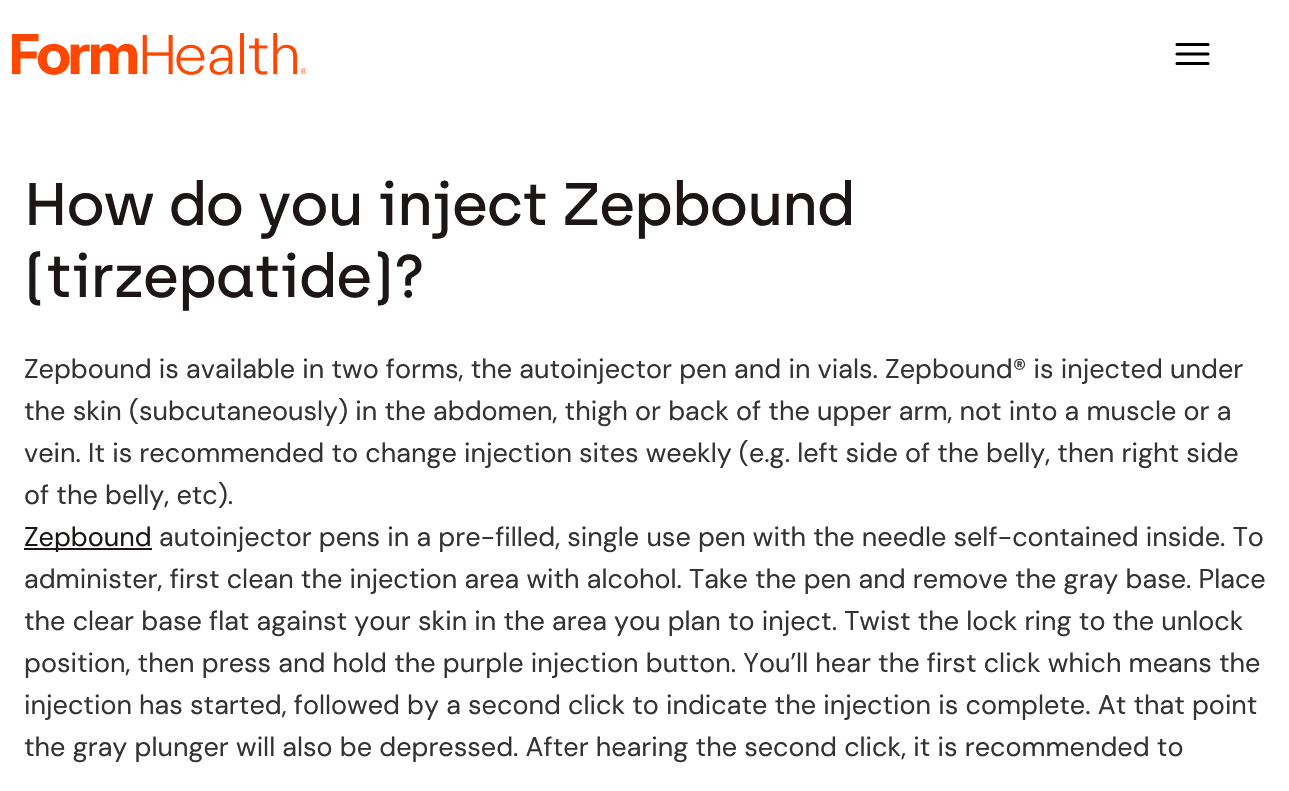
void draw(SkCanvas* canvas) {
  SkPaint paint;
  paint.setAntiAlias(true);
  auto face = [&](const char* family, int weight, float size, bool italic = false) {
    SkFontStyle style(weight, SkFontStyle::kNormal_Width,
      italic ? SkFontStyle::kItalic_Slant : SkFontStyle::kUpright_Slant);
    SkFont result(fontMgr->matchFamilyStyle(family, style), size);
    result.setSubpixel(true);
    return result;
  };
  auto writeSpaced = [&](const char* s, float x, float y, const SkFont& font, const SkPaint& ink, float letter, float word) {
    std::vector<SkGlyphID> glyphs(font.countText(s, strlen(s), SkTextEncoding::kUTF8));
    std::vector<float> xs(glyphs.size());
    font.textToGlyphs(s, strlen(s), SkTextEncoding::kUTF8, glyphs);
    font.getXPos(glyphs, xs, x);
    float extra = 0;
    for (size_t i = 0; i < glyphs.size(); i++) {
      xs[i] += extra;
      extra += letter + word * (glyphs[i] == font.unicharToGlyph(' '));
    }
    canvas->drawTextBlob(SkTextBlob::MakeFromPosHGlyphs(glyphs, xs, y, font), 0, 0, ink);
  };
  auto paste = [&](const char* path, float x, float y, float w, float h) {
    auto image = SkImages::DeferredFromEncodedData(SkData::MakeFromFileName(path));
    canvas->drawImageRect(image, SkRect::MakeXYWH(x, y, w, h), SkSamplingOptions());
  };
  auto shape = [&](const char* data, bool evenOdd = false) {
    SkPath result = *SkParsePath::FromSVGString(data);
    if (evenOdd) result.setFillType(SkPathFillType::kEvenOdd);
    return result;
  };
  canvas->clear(0xffffffff);
  paste("img/1.png", 12, 33, 294, 42);
  paint.setStroke(true);
  paint.setStrokeWidth(3.1f);
  paint.setStrokeCap(SkPaint::kRound_Cap);
  paint.setColor(0xff000000);
  canvas->drawPath(shape("M1177 63.5H1208M1177 54H1208M1177 44.5H1208"), paint);
  paint.setStroke(false);
  paint.setColor(0xff1c1716);
  canvas->drawRect(SkRect::MakeXYWH(24, 548, 128, 2), paint);
  auto f0 = face("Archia", 500, 60);
  writeSpaced("How do you inject Zepbound", 24, 225, f0, paint, -1.1f, 0);
  writeSpaced("(tirzepatide)?", 24, 297, f0, paint, -1.1f, 0);
  auto f1 = face("DM Sans", 400, 27);
  paint.setColor(0xff333333);
  {
    const struct { const char* s; float x, y; } items[] = {
      {"Zepbound is available in two forms, the autoinjector pen and in vials. Zepbound® is injected under", 24, 378},
      {"the skin (subcutaneously) in the abdomen, thigh or back of the upper arm, not into a muscle or a", 24, 420},
      {"vein. It is recommended to change injection sites weekly (e.g. left side of the belly, then right side", 24, 462},
      {"of the belly, etc).", 24, 504},
    };
    for (auto [s, x, y] : items) {
      canvas->drawString(s, x, y, f1, paint);
    }
  }
  paint.setColor(0xff1c1716);
  canvas->drawString("Zepbound", 24, 546, f1, paint);
  paint.setColor(0xff333333);
  {
    const struct { const char* s; float x, y; } items[] = {
      {"autoinjector pens in a pre-filled, single use pen with the needle self-contained inside. To", 159, 546},
      {"administer, first clean the injection area with alcohol. Take the pen and remove the gray base. Place", 24, 588},
      {"the clear base flat against your skin in the area you plan to inject. Twist the lock ring to the unlock", 24, 630},
      {"position, then press and hold the purple injection button. You’ll hear the first click which means the", 24, 672},
      {"injection has started, followed by a second click to indicate the injection is complete. At that point", 24, 714},
      {"the gray plunger will also be depressed. After hearing the second click, it is recommended to", 24, 756},
    };
    for (auto [s, x, y] : items) {
      canvas->drawString(s, x, y, f1, paint);
    }
  }
}
